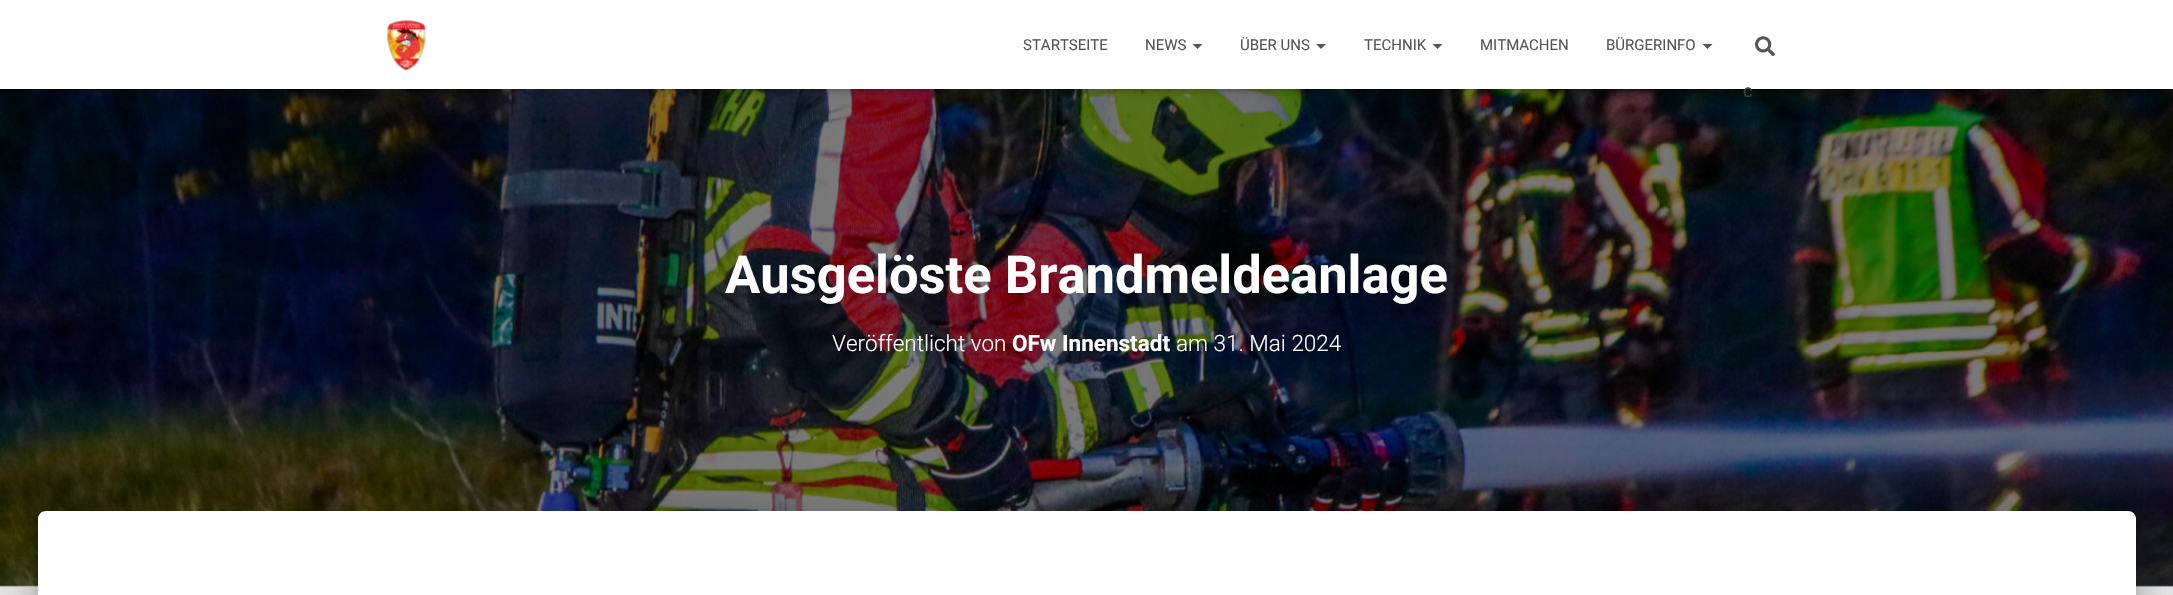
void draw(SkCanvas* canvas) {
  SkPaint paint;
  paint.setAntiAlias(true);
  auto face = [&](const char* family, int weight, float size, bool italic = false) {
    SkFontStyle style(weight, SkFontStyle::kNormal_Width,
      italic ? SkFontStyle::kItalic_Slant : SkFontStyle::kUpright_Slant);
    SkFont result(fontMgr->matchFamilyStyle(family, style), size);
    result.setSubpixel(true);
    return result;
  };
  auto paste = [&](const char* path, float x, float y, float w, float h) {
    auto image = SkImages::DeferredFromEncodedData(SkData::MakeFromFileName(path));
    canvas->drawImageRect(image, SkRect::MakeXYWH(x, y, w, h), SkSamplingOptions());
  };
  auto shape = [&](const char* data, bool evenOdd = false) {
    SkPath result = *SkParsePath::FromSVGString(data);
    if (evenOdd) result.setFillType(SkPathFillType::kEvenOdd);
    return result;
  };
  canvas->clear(0xffe5e5e5);
  paste("img/3.png", 0, 89, 2173, 498);
  paint.setColor(0x1a000000);
  paint.setMaskFilter(SkMaskFilter::MakeBlur(kNormal_SkBlurStyle, 3));
  canvas->drawRect(SkRect::MakeXYWH(3, 8, 2168, 83), paint);
  paint.setMaskFilter(nullptr);
  paint.setColor(0x1f000000);
  paint.setMaskFilter(SkMaskFilter::MakeBlur(kNormal_SkBlurStyle, 6));
  canvas->drawRect(SkRect::MakeXYWH(0, 1, 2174, 89), paint);
  paint.setMaskFilter(nullptr);
  paint.setColor(0x6b000000);
  paint.setMaskFilter(SkMaskFilter::MakeBlur(kNormal_SkBlurStyle, 6));
  canvas->drawRect(SkRect::MakeXYWH(8, 9, 2158, 74), paint);
  paint.setMaskFilter(nullptr);
  paint.setColor(0xffffffff);
  canvas->drawRect(SkRect::MakeXYWH(0, 0, 2173, 89), paint);
  paste("img/1.png", 386, 20, 40, 51);
  paint.setColor(0xff555555);
  canvas->drawPath(shape("M1192.5 44H1202.5L1197.5 49Z"), paint);
  canvas->drawPath(shape("M1316 44H1326L1321 49Z"), paint);
  canvas->drawPath(shape("M1432.5 44H1442.5L1437.5 49Z"), paint);
  canvas->drawPath(shape("M1702.5 44H1712.5L1707.5 49Z"), paint);
  paste("img/2.png", 1755, 36, 20, 20);
  paint.setColor(0x33000000);
  paint.setMaskFilter(SkMaskFilter::MakeBlur(kNormal_SkBlurStyle, 6));
  canvas->drawRoundRect(SkRect::MakeXYWH(44, 528, 2086, 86), 1, 1, paint);
  paint.setMaskFilter(nullptr);
  paint.setColor(0x1f000000);
  paint.setMaskFilter(SkMaskFilter::MakeBlur(kNormal_SkBlurStyle, 19));
  canvas->drawRoundRect(SkRect::MakeXYWH(31, 513, 2112, 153), 14, 14, paint);
  paint.setMaskFilter(nullptr);
  paint.setColor(0x24000000);
  paint.setMaskFilter(SkMaskFilter::MakeBlur(kNormal_SkBlurStyle, 15));
  canvas->drawRoundRect(SkRect::MakeXYWH(35, 529, 2104, 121), 10, 10, paint);
  paint.setMaskFilter(nullptr);
  paint.setColor(0xffffffff);
  canvas->drawPath(shape("M46 511H2128C2132.5 511 2136 514.5 2136 519V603H38V519C38 514.5 41.5 511 46 511Z"), paint);
  auto f0 = face("Roboto", 400, 15);
  paint.setColor(0xff555555);
  {
    const struct { const char* s; float x, y; } items[] = {
      {"STARTSEITE", 1023, 50},
      {"NEWS", 1145, 50},
      {"ÜBER UNS", 1240, 50},
      {"TECHNIK", 1364, 50},
      {"MITMACHEN", 1480, 50},
      {"BÜRGERINFO", 1606, 50},
    };
    for (auto [s, x, y] : items) {
      canvas->drawString(s, x, y, f0, paint);
    }
  }
  auto f1 = face("Roboto", 400, 18);
  paint.setColor(0xff364343);
  canvas->drawString("c", 1743, 97, f1, paint);
  auto f2 = face("Roboto", 700, 52.5f);
  paint.setColor(0xffffffff);
  canvas->drawString("Ausgelöste Brandmeldeanlage", 725, 293, f2, paint);
  auto f3 = face("Roboto", 300, 22.5f);
  canvas->drawString("Veröffentlicht von", 832, 351, f3, paint);
  auto f4 = face("Roboto", 700, 22.5f);
  canvas->drawString("OFw Innenstadt", 1012, 351, f4, paint);
  canvas->drawString("am 31. Mai 2024", 1176, 351, f3, paint);
}
